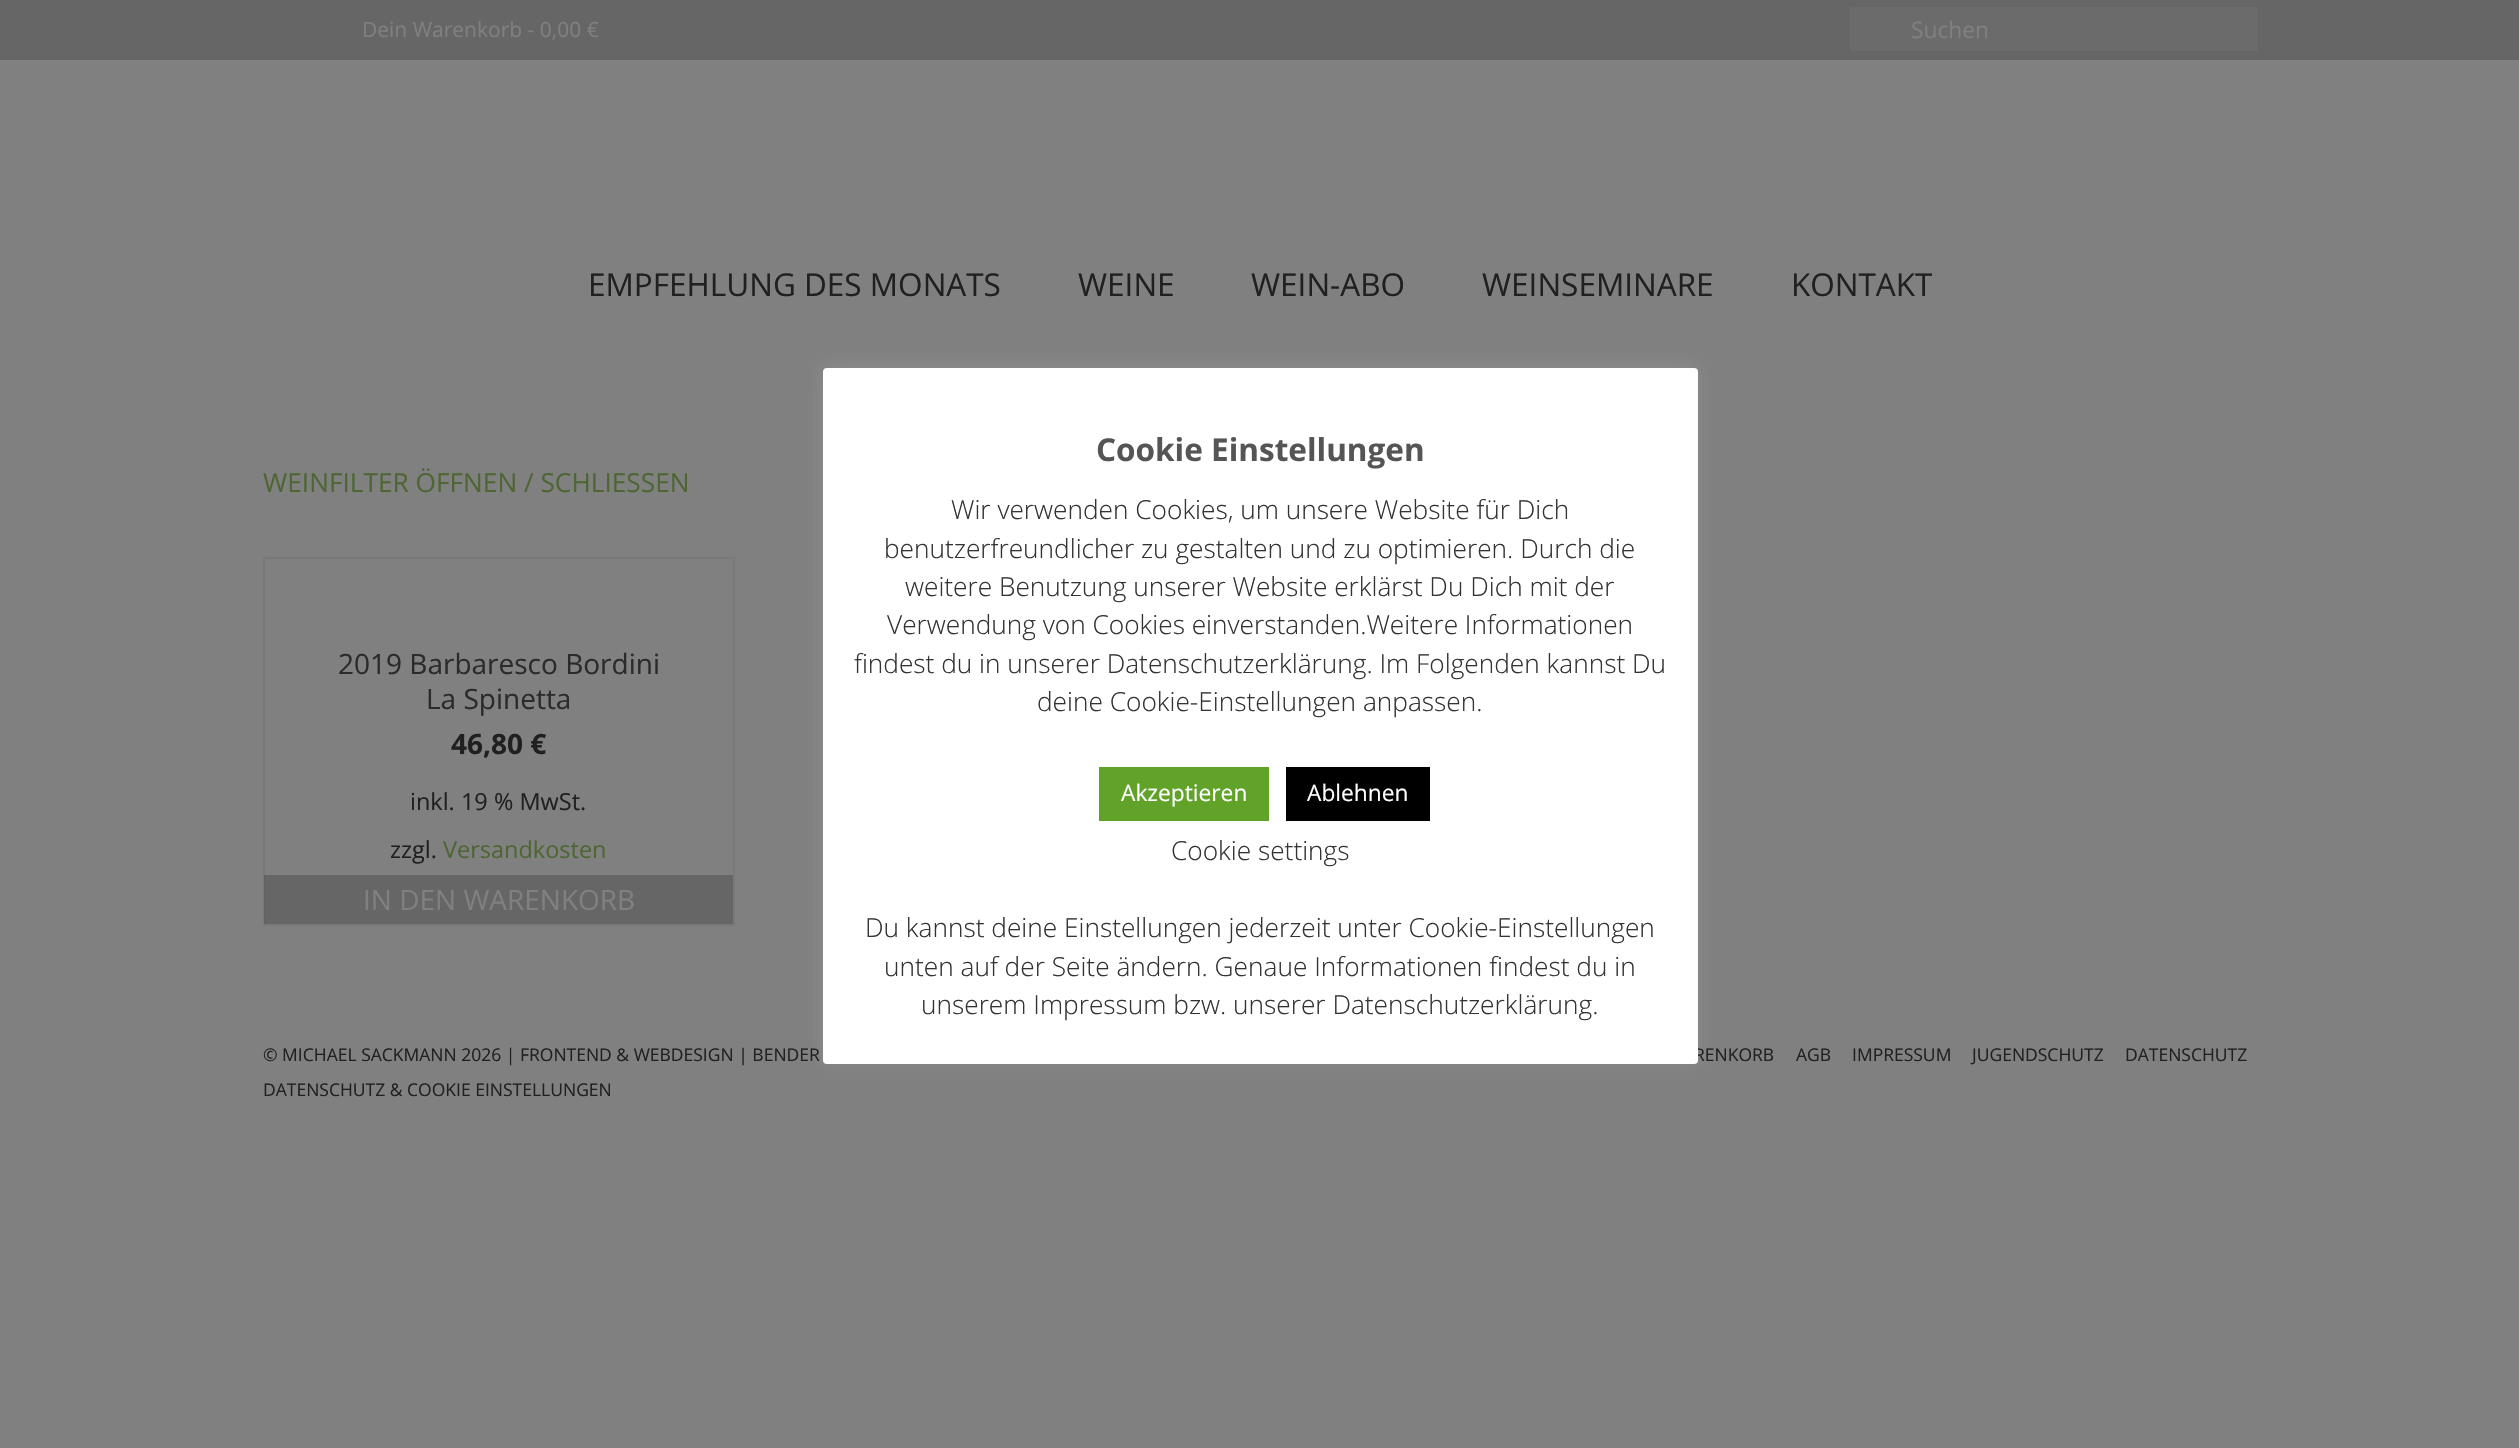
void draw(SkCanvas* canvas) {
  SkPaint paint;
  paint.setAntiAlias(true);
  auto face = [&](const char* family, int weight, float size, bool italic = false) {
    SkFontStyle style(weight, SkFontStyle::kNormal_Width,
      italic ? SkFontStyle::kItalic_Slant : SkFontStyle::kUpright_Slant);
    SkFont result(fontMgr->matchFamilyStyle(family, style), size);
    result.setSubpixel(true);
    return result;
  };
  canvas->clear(0xff808080);
  paint.setColor(0xff666666);
  canvas->drawRect(SkRect::MakeXYWH(0, 0, 2519, 60), paint);
  paint.setColor(0xff6b6b6b);
  canvas->drawRect(SkRect::MakeXYWH(1850, 7, 408, 44), paint);
  paint.setStroke(true);
  paint.setStrokeWidth(2);
  paint.setColor(0xff797979);
  canvas->drawRect(SkRect::MakeXYWH(264, 558, 470, 367), paint);
  paint.setStroke(false);
  paint.setColor(0x33000000);
  canvas->drawRect(SkRect::MakeXYWH(264, 875, 469, 49), paint);
  paint.setColor(0x4dacabab);
  paint.setMaskFilter(SkMaskFilter::MakeBlur(kNormal_SkBlurStyle, 9));
  canvas->drawRoundRect(SkRect::MakeXYWH(823, 366, 875, 696), 4, 4, paint);
  paint.setMaskFilter(nullptr);
  auto f0 = face("Open Sans", 400, 21);
  paint.setColor(0xff808080);
  canvas->drawString("Dein Warenkorb - 0,00 €", 362, 37, f0, paint);
  auto f1 = face("Open Sans", 400, 22.75f);
  canvas->drawString("Suchen", 1911, 38, f1, paint);
  auto f2 = face("Open Sans", 400, 31.5f);
  paint.setColor(0xff202020);
  {
    const struct { const char* s; float x, y; } items[] = {
      {"EMPFEHLUNG DES MONATS", 588, 296},
      {"WEINE", 1078, 296},
      {"WEIN-ABO", 1251, 296},
      {"WEINSEMINARE", 1482, 296},
      {"KONTAKT", 1791, 296},
    };
    for (auto [s, x, y] : items) {
      canvas->drawString(s, x, y, f2, paint);
    }
  }
  auto f3 = face("Open Sans", 400, 26.25f);
  paint.setColor(0xff4d6633);
  canvas->drawString("WEINFILTER ÖFFNEN / SCHLIESSEN", 263, 492, f3, paint);
  auto f4 = face("Open Sans", 400, 28);
  paint.setColor(0xff2b2b2b);
  canvas->drawString("2019 Barbaresco Bordini", 338, 674, f4, paint);
  canvas->drawString("La Spinetta", 426, 709, f4, paint);
  auto f5 = face("Open Sans", 700, 28);
  paint.setColor(0xff202020);
  canvas->drawString("46,80 €", 451, 754, f5, paint);
  auto f6 = face("Open Sans", 400, 23.5f);
  canvas->drawString("inkl. 19 % MwSt.", 410, 810, f6, paint);
  canvas->drawString("zzgl.", 390, 858, f6, paint);
  paint.setColor(0xff4d6633);
  canvas->drawString("Versandkosten", 443, 858, f6, paint);
  paint.setColor(0xff808080);
  canvas->drawString("IN DEN WARENKORB", 363, 910, f4, paint);
  auto f7 = face("Open Sans", 400, 17.5f);
  paint.setColor(0xff202020);
  {
    const struct { const char* s; float x, y; } items[] = {
      {"© MICHAEL SACKMANN 2026 | FRONTEND & WEBDESIGN | BENDER", 263, 1061},
      {"DATENSCHUTZ & COOKIE EINSTELLUNGEN", 263, 1096},
      {"RENKORB", 1694, 1061},
      {"AGB", 1796, 1061},
      {"IMPRESSUM", 1852, 1061},
      {"JUGENDSCHUTZ", 1972, 1061},
      {"DATENSCHUTZ", 2125, 1061},
    };
    for (auto [s, x, y] : items) {
      canvas->drawString(s, x, y, f7, paint);
    }
  }
  paint.setColor(0xffffffff);
  canvas->drawRoundRect(SkRect::MakeXYWH(823, 368, 875, 696), 4, 4, paint);
  auto f8 = face("Open Sans", 700, 31.5f);
  paint.setColor(0xff555555);
  canvas->drawString("Cookie Einstellungen", 1096, 461, f8, paint);
  auto f9 = face("Open Sans", 300, 26.25f);
  paint.setColor(0xff333333);
  {
    const struct { const char* s; float x, y; } items[] = {
      {"Wir verwenden Cookies, um unsere Website für Dich", 951, 519},
      {"benutzerfreundlicher zu gestalten und zu optimieren. Durch die", 884, 558},
      {"weitere Benutzung unserer Website erklärst Du Dich mit der", 905, 596},
      {"Verwendung von Cookies einverstanden.Weitere Informationen", 887, 634},
      {"findest du in unserer Datenschutzerklärung. Im Folgenden kannst Du", 854, 673},
      {"deine Cookie-Einstellungen anpassen.", 1037, 711},
    };
    for (auto [s, x, y] : items) {
      canvas->drawString(s, x, y, f9, paint);
    }
  }
  paint.setColor(0xff61a229);
  canvas->drawRect(SkRect::MakeXYWH(1099, 767, 170, 54), paint);
  paint.setColor(0xffffffff);
  canvas->drawString("Akzeptieren", 1121, 801, f1, paint);
  paint.setColor(0xff000000);
  canvas->drawRect(SkRect::MakeXYWH(1286, 767, 144, 54), paint);
  paint.setColor(0xffffffff);
  canvas->drawString("Ablehnen", 1307, 801, f1, paint);
  paint.setColor(0xff333333);
  {
    const struct { const char* s; float x, y; } items[] = {
      {"Cookie settings", 1171, 860},
      {"Du kannst deine Einstellungen jederzeit unter Cookie-Einstellungen", 865, 937},
      {"unten auf der Seite ändern. Genaue Informationen findest du in", 884, 976},
      {"unserem Impressum bzw. unserer Datenschutzerklärung.", 921, 1014},
    };
    for (auto [s, x, y] : items) {
      canvas->drawString(s, x, y, f9, paint);
    }
  }
}
